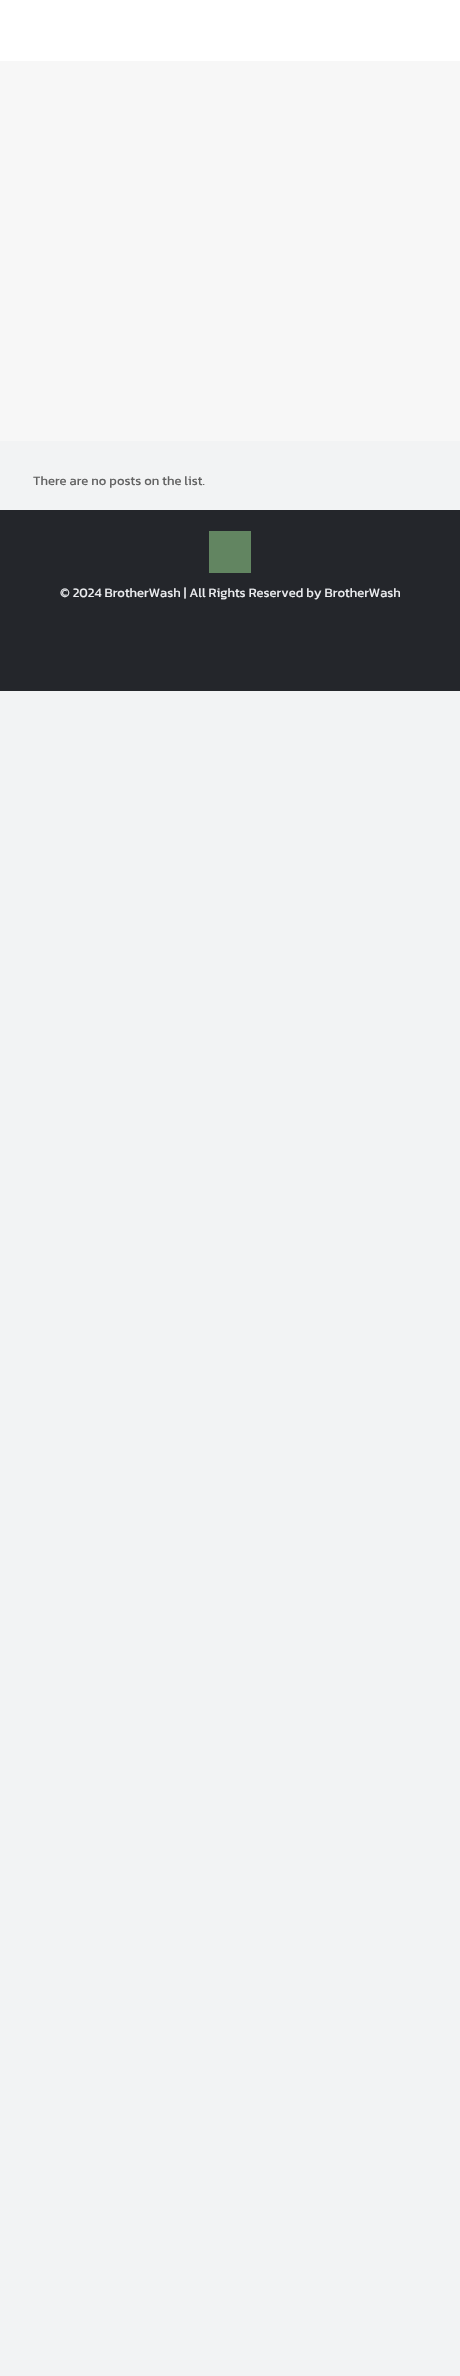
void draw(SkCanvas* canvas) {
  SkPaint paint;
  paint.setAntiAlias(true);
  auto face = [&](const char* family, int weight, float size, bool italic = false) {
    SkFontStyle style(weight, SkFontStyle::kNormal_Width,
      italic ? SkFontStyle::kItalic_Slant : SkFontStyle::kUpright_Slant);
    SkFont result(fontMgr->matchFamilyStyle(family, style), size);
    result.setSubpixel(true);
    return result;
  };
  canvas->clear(0xfff2f3f4);
  {
    const struct { float x, y, w, h; SkColor color; } items[] = {
      {0, 0, 460, 61, 0xffffffff},
      {0, 61, 460, 380, 0xfff7f7f7},
      {0, 510, 460, 181, 0xff24262b},
      {209, 531, 42, 42, 0xff628561},
    };
    for (auto [x, y, w, h, color] : items) {
      paint.setColor(color);
      canvas->drawRect(SkRect::MakeXYWH(x, y, w, h), paint);
    }
  }
  auto f0 = face("Kanit", 400, 13);
  paint.setColor(0xff626262);
  canvas->drawString("There are no posts on the list.", 33, 485, f0, paint);
  paint.setColor(0xffecedf0);
  canvas->drawString("© 2024 BrotherWash | All Rights Reserved by BrotherWash", 60, 597, f0, paint);
}
